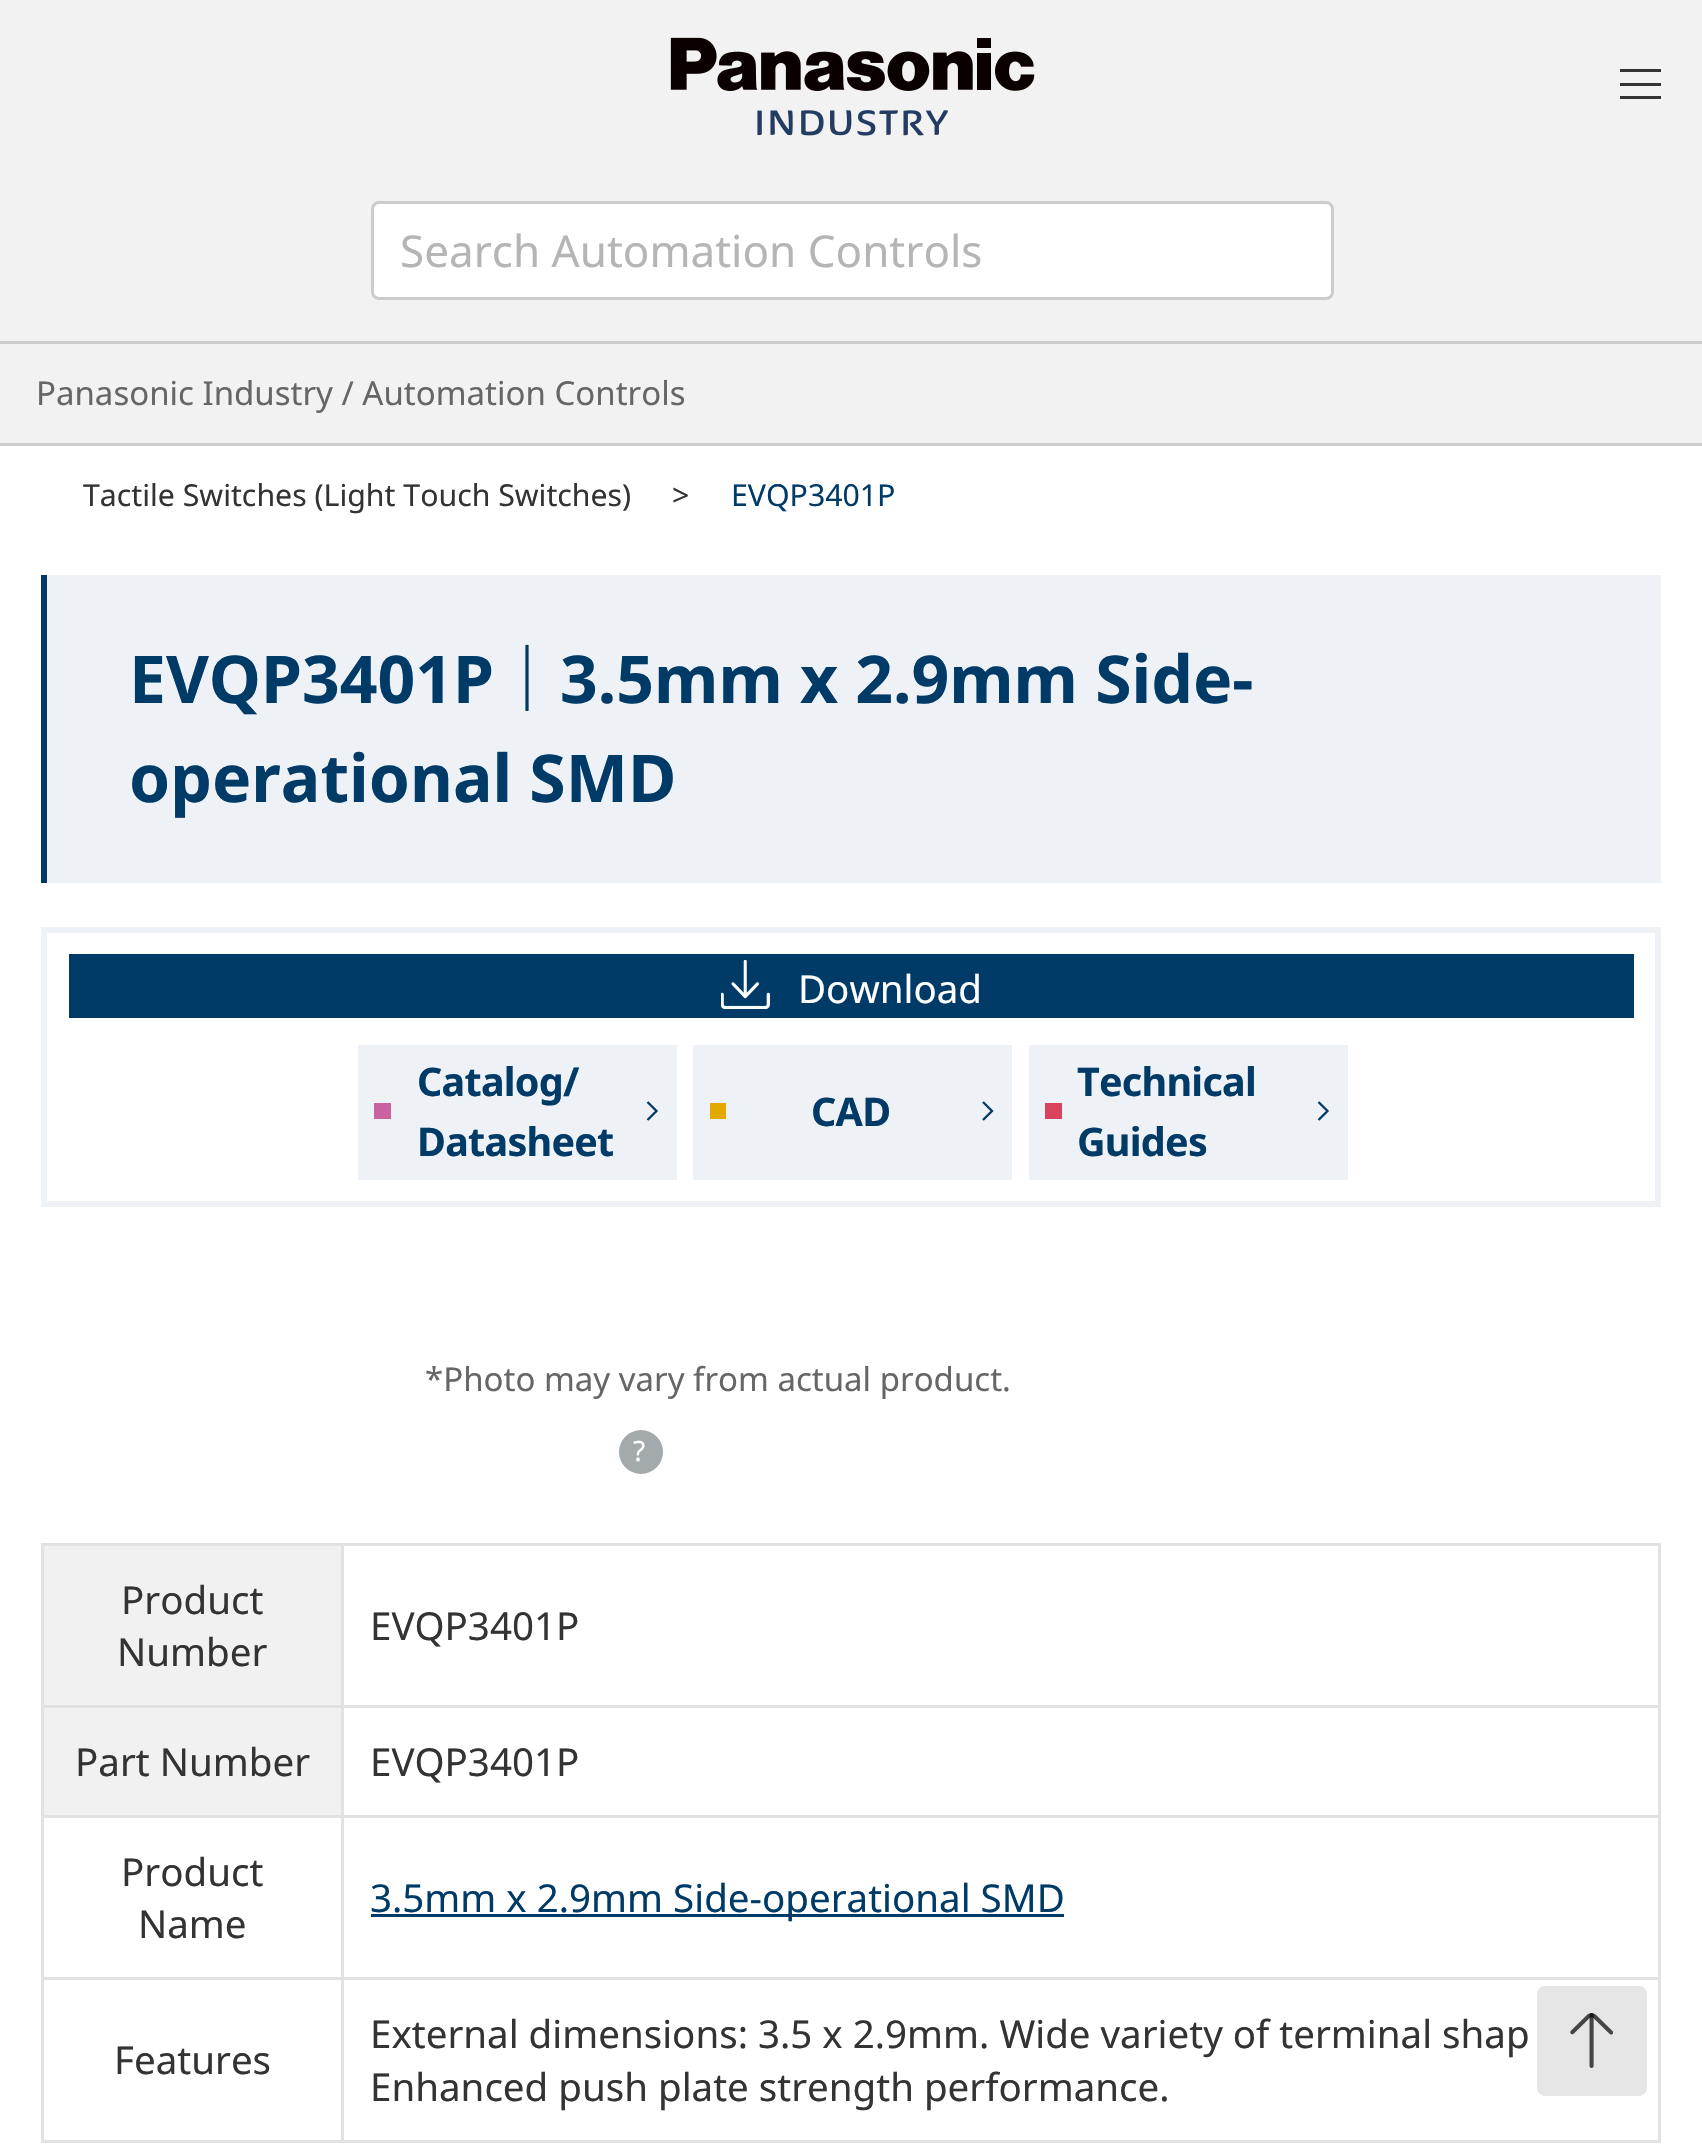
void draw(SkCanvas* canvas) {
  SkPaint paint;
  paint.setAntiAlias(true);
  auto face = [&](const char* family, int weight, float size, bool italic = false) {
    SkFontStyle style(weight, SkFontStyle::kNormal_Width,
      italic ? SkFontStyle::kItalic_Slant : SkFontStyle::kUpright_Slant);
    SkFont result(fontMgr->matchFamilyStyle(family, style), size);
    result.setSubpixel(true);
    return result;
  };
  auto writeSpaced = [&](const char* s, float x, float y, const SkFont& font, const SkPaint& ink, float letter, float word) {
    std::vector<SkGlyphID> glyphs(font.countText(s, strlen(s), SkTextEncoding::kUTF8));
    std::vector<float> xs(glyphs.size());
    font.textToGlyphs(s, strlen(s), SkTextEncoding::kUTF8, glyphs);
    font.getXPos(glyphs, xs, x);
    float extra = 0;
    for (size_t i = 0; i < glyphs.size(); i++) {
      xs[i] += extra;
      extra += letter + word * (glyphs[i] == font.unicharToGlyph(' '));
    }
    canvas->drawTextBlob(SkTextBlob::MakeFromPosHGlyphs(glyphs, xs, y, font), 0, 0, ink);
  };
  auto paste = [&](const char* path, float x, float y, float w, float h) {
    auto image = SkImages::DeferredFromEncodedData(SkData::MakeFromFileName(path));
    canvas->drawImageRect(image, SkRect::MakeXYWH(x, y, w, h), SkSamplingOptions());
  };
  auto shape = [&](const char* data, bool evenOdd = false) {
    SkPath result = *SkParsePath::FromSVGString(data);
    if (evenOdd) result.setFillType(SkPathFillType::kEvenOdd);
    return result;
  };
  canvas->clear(0xffffffff);
  {
    const struct { float x, y, w, h; SkColor color; } items[] = {
      {0, 0, 1702, 443, 0xfff2f2f2},
      {1620, 69, 41, 3, 0xff333333},
      {1620, 83, 41, 3, 0xff333333},
      {1620, 96, 41, 3, 0xff333333},
    };
    for (auto [x, y, w, h, color] : items) {
      paint.setColor(color);
      canvas->drawRect(SkRect::MakeXYWH(x, y, w, h), paint);
    }
  }
  paste("img/1.png", 670, 37, 365, 99);
  paint.setColor(0xffffffff);
  canvas->drawRoundRect(SkRect::MakeXYWH(372.5f, 202.5f, 960, 96), 6.5f, 6.5f, paint);
  paint.setStroke(true);
  paint.setStrokeWidth(3);
  paint.setColor(0xffcccccc);
  canvas->drawRoundRect(SkRect::MakeXYWH(372.5f, 202.5f, 960, 96), 6.5f, 6.5f, paint);
  paint.setStroke(false);
  {
    const struct { float x, y, w, h; SkColor color; } items[] = {
      {0, 341, 1702, 3, 0xffcccccc},
      {0, 443, 1702, 3, 0xffcccccc},
      {47, 575, 1614, 308, 0xffeef1f5},
      {41, 575, 6, 308, 0xff003b68},
    };
    for (auto [x, y, w, h, color] : items) {
      paint.setColor(color);
      canvas->drawRect(SkRect::MakeXYWH(x, y, w, h), paint);
    }
  }
  paint.setStroke(true);
  paint.setStrokeWidth(6);
  paint.setColor(0xffeef1f5);
  canvas->drawRect(SkRect::MakeXYWH(44, 930, 1614, 274), paint);
  paint.setStroke(false);
  paint.setColor(0xff003b68);
  canvas->drawRect(SkRect::MakeXYWH(69, 954, 1565, 64), paint);
  paste("img/2.png", 721, 960, 49, 49);
  paint.setColor(0xffeef1f5);
  canvas->drawRect(SkRect::MakeXYWH(358, 1045, 319, 135), paint);
  paint.setColor(0xffca62a1);
  canvas->drawRect(SkRect::MakeXYWH(374, 1103, 17, 16), paint);
  paint.setStroke(true);
  paint.setStrokeWidth(2.3f);
  paint.setColor(0xff003b68);
  canvas->drawPath(shape("M647.5 1102L656.5 1111L647.5 1120"), paint);
  paint.setStroke(false);
  paint.setColor(0xffeef1f5);
  canvas->drawRect(SkRect::MakeXYWH(693, 1045, 319, 135), paint);
  paint.setColor(0xffe2a900);
  canvas->drawRect(SkRect::MakeXYWH(710, 1103, 16, 16), paint);
  paint.setStroke(true);
  paint.setColor(0xff003b68);
  canvas->drawPath(shape("M983 1102L992 1111L983 1120"), paint);
  paint.setStroke(false);
  paint.setColor(0xffeef1f5);
  canvas->drawRect(SkRect::MakeXYWH(1029, 1045, 319, 135), paint);
  paint.setColor(0xffda435d);
  canvas->drawRect(SkRect::MakeXYWH(1045, 1103, 17, 16), paint);
  paint.setStroke(true);
  paint.setColor(0xff003b68);
  canvas->drawPath(shape("M1318.5 1102L1327.5 1111L1318.5 1120"), paint);
  paint.setStroke(false);
  paint.setColor(0xffa2aaad);
  canvas->drawCircle(641, 1452, 22, paint);
  {
    const struct { float x, y, w, h; SkColor color; } items[] = {
      {44, 1546, 297, 159, 0xfff1f1f1},
      {341, 1543, 1320, 3, 0xffe2e2e2},
      {341, 1705, 1320, 3, 0xffe2e2e2},
      {341, 1815, 1320, 3, 0xffe2e2e2},
      {341, 1977, 1320, 3, 0xffe2e2e2},
      {1658, 1977, 3, 165, 0xffe2e2e2},
      {341, 2140, 1320, 3, 0xffe2e2e2},
      {341, 1977, 3, 165, 0xffe2e2e2},
      {41, 1977, 303, 3, 0xffe2e2e2},
      {341, 1815, 3, 165, 0xffe2e2e2},
      {41, 1815, 303, 3, 0xffe2e2e2},
      {341, 1705, 3, 113, 0xffe2e2e2},
      {41, 1705, 303, 3, 0xffe2e2e2},
      {341, 1543, 3, 165, 0xffe2e2e2},
      {41, 1543, 303, 3, 0xffe2e2e2},
      {41, 2140, 303, 3, 0xffe2e2e2},
      {41, 1977, 3, 165, 0xffe2e2e2},
      {41, 1815, 3, 165, 0xffe2e2e2},
      {41, 1705, 3, 113, 0xffe2e2e2},
      {41, 1543, 3, 165, 0xffe2e2e2},
      {1658, 1815, 3, 165, 0xffe2e2e2},
      {1658, 1705, 3, 113, 0xffe2e2e2},
      {1658, 1543, 3, 165, 0xffe2e2e2},
      {44, 1708, 297, 107, 0xfff1f1f1},
      {371, 1914, 693, 3, 0xff003b68},
    };
    for (auto [x, y, w, h, color] : items) {
      paint.setColor(color);
      canvas->drawRect(SkRect::MakeXYWH(x, y, w, h), paint);
    }
  }
  paste("img/3.png", 1537, 1986, 110, 110);
  auto f0 = face("Noto Sans", 400, 44);
  paint.setColor(0xffb5b5b5);
  canvas->drawString("Search Automation Controls", 400, 267, f0, paint);
  auto f1 = face("Noto Sans", 400, 33);
  paint.setColor(0xff666666);
  canvas->drawString("Panasonic Industry / Automation Controls", 36, 405, f1, paint);
  auto f2 = face("Noto Sans", 400, 30.25f);
  paint.setColor(0xff333333);
  canvas->drawString("Tactile Switches (Light Touch Switches)", 83, 506, f2, paint);
  canvas->drawString(">", 672, 506, f2, paint);
  paint.setColor(0xff003b68);
  canvas->drawString("EVQP3401P", 731, 506, f2, paint);
  auto f3 = face("Noto Sans", 700, 66);
  canvas->drawString("EVQP3401P", 129, 703, f3, paint);
  auto f4 = face("Noto Sans JP", 700, 66);
  canvas->drawString("｜", 494, 703, f4, paint);
  canvas->drawString("3.5mm x 2.9mm Side-", 560, 703, f3, paint);
  canvas->drawString("operational SMD", 129, 802, f3, paint);
  auto f5 = face("Noto Sans", 400, 38.5f);
  paint.setColor(0xffffffff);
  canvas->drawString("Download", 798, 1003, f5, paint);
  auto f6 = face("Noto Sans", 700, 39.5f);
  paint.setColor(0xff003b68);
  {
    const struct { const char* s; float x, y; } items[] = {
      {"Catalog/", 417, 1096},
      {"Datasheet", 417, 1156},
      {"CAD", 811, 1126},
      {"Technical", 1077, 1096},
      {"Guides", 1077, 1156},
    };
    for (auto [s, x, y] : items) {
      writeSpaced(s, x, y, f6, paint, -0.75f, 0);
    }
  }
  paint.setColor(0xff666666);
  canvas->drawString("*Photo may vary from actual product.", 425, 1391, f1, paint);
  auto f7 = face("Noto Sans", 400, 28);
  paint.setColor(0xffffffff);
  canvas->drawString("?", 633, 1461, f7, paint);
  paint.setColor(0xff333333);
  {
    const struct { const char* s; float x, y; } items[] = {
      {"Product", 121, 1614},
      {"Number", 117, 1666},
      {"EVQP3401P", 370, 1640},
      {"Part Number", 75, 1776},
      {"EVQP3401P", 370, 1776},
      {"Product", 121, 1886},
      {"Name", 138, 1938},
    };
    for (auto [s, x, y] : items) {
      canvas->drawString(s, x, y, f5, paint);
    }
  }
  paint.setColor(0xff003b68);
  canvas->drawString("3.5mm x 2.9mm Side-operational SMD", 370, 1912, f5, paint);
  paint.setColor(0xff333333);
  {
    const struct { const char* s; float x, y; } items[] = {
      {"Features", 114, 2074},
      {"External dimensions: 3.5 x 2.9mm. Wide variety of terminal shap", 370, 2048},
      {"Enhanced push plate strength performance.", 370, 2101},
    };
    for (auto [s, x, y] : items) {
      canvas->drawString(s, x, y, f5, paint);
    }
  }
}
